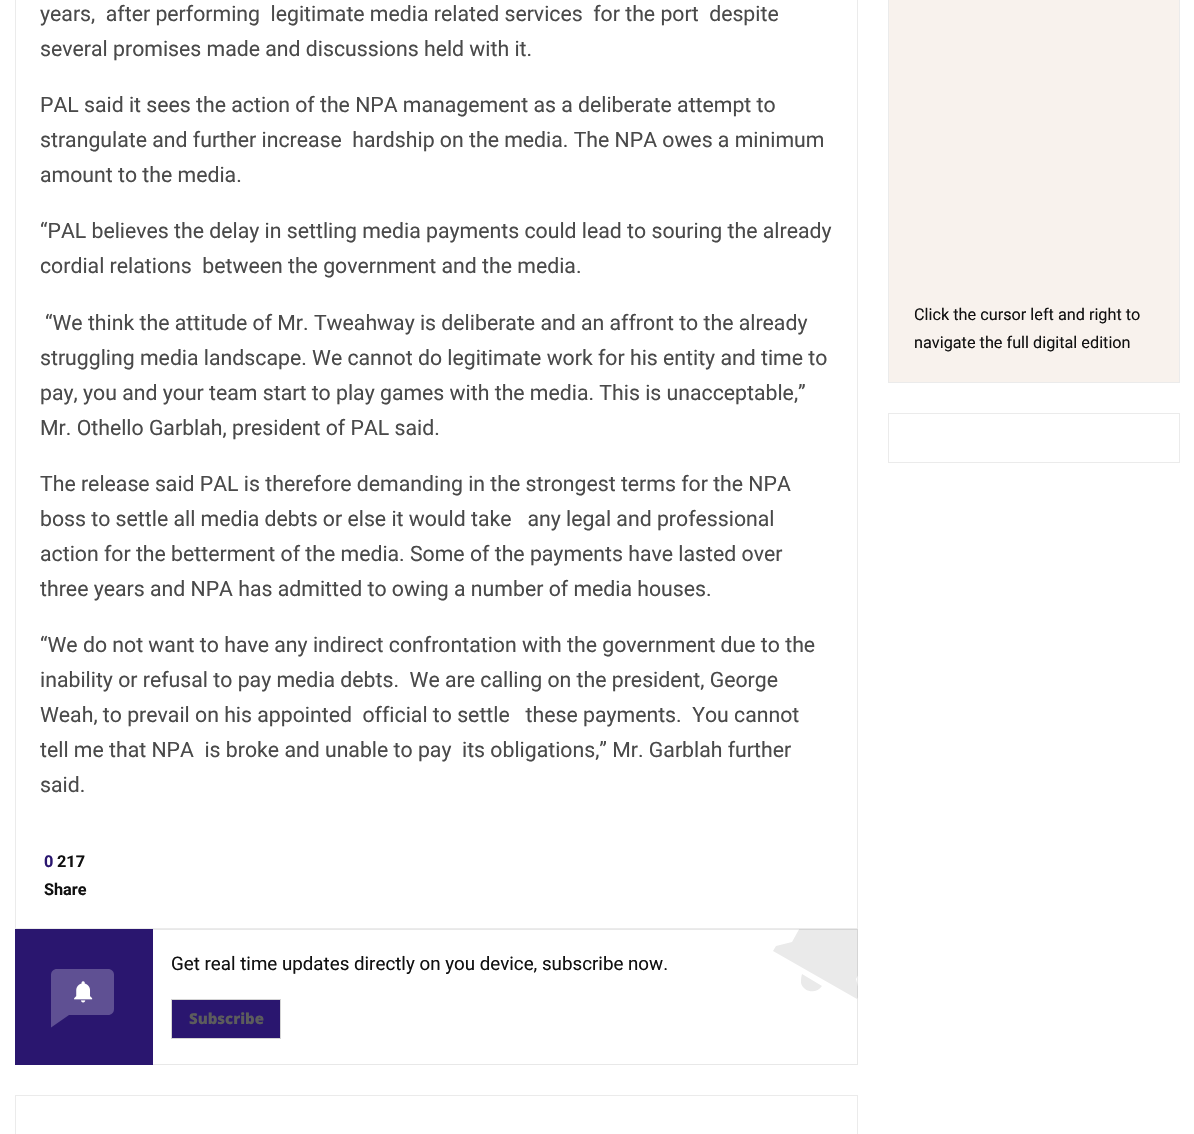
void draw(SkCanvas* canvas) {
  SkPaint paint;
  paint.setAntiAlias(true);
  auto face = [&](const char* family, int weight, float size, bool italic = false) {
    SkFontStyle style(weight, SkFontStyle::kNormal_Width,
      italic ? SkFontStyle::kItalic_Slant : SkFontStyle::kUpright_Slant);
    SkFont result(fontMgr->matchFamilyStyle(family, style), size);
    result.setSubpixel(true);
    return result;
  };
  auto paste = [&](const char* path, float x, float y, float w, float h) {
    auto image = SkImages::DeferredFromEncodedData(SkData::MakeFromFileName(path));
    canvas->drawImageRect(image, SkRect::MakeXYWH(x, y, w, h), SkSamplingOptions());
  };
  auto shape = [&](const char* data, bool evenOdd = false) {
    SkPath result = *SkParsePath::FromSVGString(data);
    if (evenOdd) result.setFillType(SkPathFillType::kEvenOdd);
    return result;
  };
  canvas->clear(0xffffffff);
  paint.setStroke(true);
  paint.setStrokeWidth(1);
  paint.setColor(0xffebebeb);
  canvas->drawRect(SkRect::MakeXYWH(15.5f, -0.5f, 842, 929), paint);
  paint.setColor(0xffe8e8e8);
  canvas->drawRect(SkRect::MakeXYWH(15.5f, 929.5f, 842, 135), paint);
  paint.setStroke(false);
  paint.setColor(0xff2a166f);
  canvas->drawRect(SkRect::MakeXYWH(15, 929, 138, 136), paint);
  paint.setColor(0xff5f5093);
  canvas->drawPath(shape("M57 969H108C111.5 969 114 971.5 114 975V1009C114 1012.5 111.5 1015 108 1015H51V975C51 971.5 53.5 969 57 969Z"), paint);
  paste("img/1.png", 74, 981, 19, 22);
  canvas->drawPath(shape("M51 1027.5V1015H69Z"), paint);
  canvas->save();
  canvas->clipRect(SkRect::MakeXYWH(15, 929, 843, 136));
  paint.setColor(0x17111111);
  canvas->drawPath(shape("M801 983C804 993 817 994 822 986L802 974C801 977 801 980 801 983ZM856 979L871 952C876 944 877 936 876 928C875 919 871 912 865 906C866 904 868 902 868 900C869 893 861 888 855 891C852 893 851 895 850 898C842 895 834 896 826 899C818 902 812 907 807 915L792 942L776 946L773 951L857 999L860 994Z"), paint);
  canvas->restore();
  paint.setColor(0xff2a166f);
  canvas->drawRect(SkRect::MakeXYWH(171.5f, 999.5f, 109, 39), paint);
  paint.setStroke(true);
  paint.setColor(0xffd4d4d4);
  canvas->drawRect(SkRect::MakeXYWH(171.5f, 999.5f, 109, 39), paint);
  paint.setColor(0xffebebeb);
  canvas->drawRect(SkRect::MakeXYWH(15.5f, 1095.5f, 842, 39), paint);
  paint.setStroke(false);
  paint.setColor(0xfff8f2ed);
  canvas->drawRect(SkRect::MakeXYWH(888.5f, -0.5f, 291, 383), paint);
  paint.setStroke(true);
  paint.setColor(0xffebebeb);
  canvas->drawRect(SkRect::MakeXYWH(888.5f, -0.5f, 291, 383), paint);
  canvas->drawRect(SkRect::MakeXYWH(888.5f, 413.5f, 291, 49), paint);
  auto f0 = face("Roboto", 400, 21.25f);
  paint.setStroke(false);
  paint.setColor(0xff4a4a4a);
  {
    const struct { const char* s; float x, y; } items[] = {
      {"years,  after performing  legitimate media related services  for the port  despite", 40, 21},
      {"several promises made and discussions held with it.", 40, 56},
      {"PAL said it sees the action of the NPA management as a deliberate attempt to", 40, 112},
      {"strangulate and further increase  hardship on the media. The NPA owes a minimum", 40, 147},
      {"amount to the media.", 40, 182},
      {"“PAL believes the delay in settling media payments could lead to souring the already", 40, 238},
      {"cordial relations  between the government and the media.", 40, 273},
      {"“We think the attitude of Mr. Tweahway is deliberate and an affront to the already", 45, 330},
      {"struggling media landscape. We cannot do legitimate work for his entity and time to", 40, 365},
      {"pay, you and your team start to play games with the media. This is unacceptable,”", 40, 400},
      {"Mr. Othello Garblah, president of PAL said.", 40, 435},
      {"The release said PAL is therefore demanding in the strongest terms for the NPA", 40, 491},
      {"boss to settle all media debts or else it would take   any legal and professional", 40, 526},
      {"action for the betterment of the media. Some of the payments have lasted over", 40, 561},
      {"three years and NPA has admitted to owing a number of media houses.", 40, 596},
      {"“We do not want to have any indirect confrontation with the government due to the", 40, 652},
      {"inability or refusal to pay media debts.  We are calling on the president, George", 40, 687},
      {"Weah, to prevail on his appointed  official to settle   these payments.  You cannot", 40, 722},
      {"tell me that NPA  is broke and unable to pay  its obligations,” Mr. Garblah further", 40, 757},
      {"said.", 40, 792},
    };
    for (auto [s, x, y] : items) {
      canvas->drawString(s, x, y, f0, paint);
    }
  }
  auto f1 = face("Roboto", 700, 16.25f);
  paint.setColor(0xff2a166f);
  canvas->drawString("0", 44, 867, f1, paint);
  paint.setColor(0xff111111);
  canvas->drawString("217", 57, 867, f1, paint);
  canvas->drawString("Share", 44, 895, f1, paint);
  auto f2 = face("Roboto", 400, 18.75f);
  canvas->drawString("Get real time updates directly on you device, subscribe now.", 171, 970, f2, paint);
  auto f3 = face("Open Sans", 800, 15);
  paint.setColor(0xff5c5c5c);
  canvas->drawString("Subscribe", 189, 1024, f3, paint);
  auto f4 = face("Roboto", 400, 16.25f);
  paint.setColor(0xff111111);
  canvas->drawString("Click the cursor left and right to", 914, 320, f4, paint);
  canvas->drawString("navigate the full digital edition", 914, 348, f4, paint);
}
